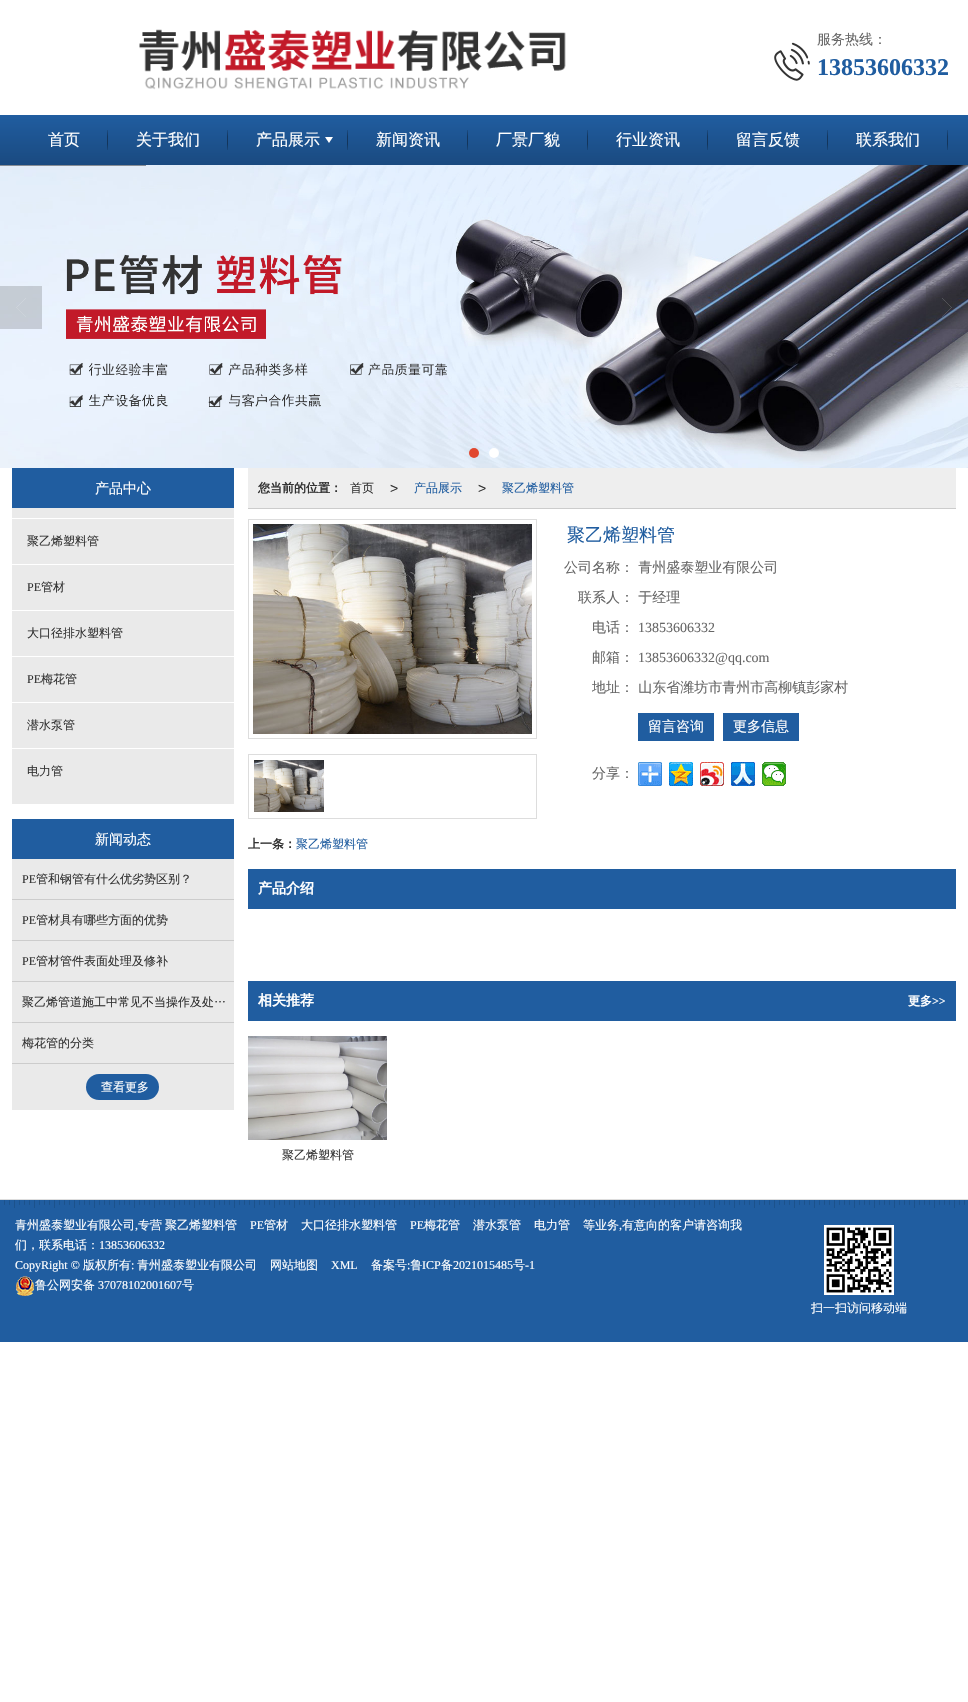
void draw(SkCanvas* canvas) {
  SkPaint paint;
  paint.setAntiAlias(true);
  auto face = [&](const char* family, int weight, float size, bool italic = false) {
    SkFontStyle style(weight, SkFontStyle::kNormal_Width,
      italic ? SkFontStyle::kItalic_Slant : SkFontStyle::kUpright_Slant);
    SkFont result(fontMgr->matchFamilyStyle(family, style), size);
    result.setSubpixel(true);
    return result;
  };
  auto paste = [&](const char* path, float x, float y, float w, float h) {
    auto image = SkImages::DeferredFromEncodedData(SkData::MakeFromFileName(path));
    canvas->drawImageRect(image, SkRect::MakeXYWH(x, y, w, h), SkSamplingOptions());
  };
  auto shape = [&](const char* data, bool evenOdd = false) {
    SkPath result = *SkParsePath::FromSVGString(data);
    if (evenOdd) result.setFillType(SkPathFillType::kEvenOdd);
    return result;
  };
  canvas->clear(0xffffffff);
  paste("img/1.png", 139, 29, 427, 61);
  paste("img/2.png", 774, 42, 36, 39);
  {
    const SkColor colors[] = {0xff205da0, 0xff1a4a80};
    const float stops[] = {0, 1};
    const SkPoint ends[] = {{484, 115}, {484, 165}};
    paint.setShader(SkGradientShader::MakeLinear(ends, colors, stops, 2, SkTileMode::kClamp));
    paint.setAlpha(255);
  }
  canvas->drawRect(SkRect::MakeXYWH(0, 115, 968, 50), paint);
  {
    const SkColor colors[] = {0x1f000000, 0x59000000, 0x5c000000, 0x5c000000, 0x1f000000};
    const float stops[] = {0, 0.3f, 0.31f, 0.7f, 1};
    const SkPoint ends[] = {{108, 130}, {108, 150}};
    paint.setShader(SkGradientShader::MakeLinear(ends, colors, stops, 5, SkTileMode::kClamp));
    paint.setAlpha(255);
  }
  canvas->drawRect(SkRect::MakeXYWH(107, 130, 1, 20), paint);
  {
    const SkColor colors[] = {0x1f000000, 0x59000000, 0x5c000000, 0x5c000000, 0x1f000000};
    const float stops[] = {0, 0.3f, 0.31f, 0.7f, 1};
    const SkPoint ends[] = {{228, 130}, {228, 150}};
    paint.setShader(SkGradientShader::MakeLinear(ends, colors, stops, 5, SkTileMode::kClamp));
    paint.setAlpha(255);
  }
  canvas->drawRect(SkRect::MakeXYWH(227, 130, 1, 20), paint);
  paint.setShader(nullptr);
  paint.setColor(0xffffffff);
  canvas->drawPath(shape("M325 137H333L329 143Z"), paint);
  {
    const SkColor colors[] = {0x1f000000, 0x59000000, 0x5c000000, 0x5c000000, 0x1f000000};
    const float stops[] = {0, 0.3f, 0.31f, 0.7f, 1};
    const SkPoint ends[] = {{348, 130}, {348, 150}};
    paint.setShader(SkGradientShader::MakeLinear(ends, colors, stops, 5, SkTileMode::kClamp));
    paint.setAlpha(255);
  }
  canvas->drawRect(SkRect::MakeXYWH(347, 130, 1, 20), paint);
  {
    const SkColor colors[] = {0x1f000000, 0x59000000, 0x5c000000, 0x5c000000, 0x1f000000};
    const float stops[] = {0, 0.3f, 0.31f, 0.7f, 1};
    const SkPoint ends[] = {{468, 130}, {468, 150}};
    paint.setShader(SkGradientShader::MakeLinear(ends, colors, stops, 5, SkTileMode::kClamp));
    paint.setAlpha(255);
  }
  canvas->drawRect(SkRect::MakeXYWH(467, 130, 1, 20), paint);
  {
    const SkColor colors[] = {0x1f000000, 0x59000000, 0x5c000000, 0x5c000000, 0x1f000000};
    const float stops[] = {0, 0.3f, 0.31f, 0.7f, 1};
    const SkPoint ends[] = {{588, 130}, {588, 150}};
    paint.setShader(SkGradientShader::MakeLinear(ends, colors, stops, 5, SkTileMode::kClamp));
    paint.setAlpha(255);
  }
  canvas->drawRect(SkRect::MakeXYWH(587, 130, 1, 20), paint);
  {
    const SkColor colors[] = {0x1f000000, 0x59000000, 0x5c000000, 0x5c000000, 0x1f000000};
    const float stops[] = {0, 0.3f, 0.31f, 0.7f, 1};
    const SkPoint ends[] = {{708, 130}, {708, 150}};
    paint.setShader(SkGradientShader::MakeLinear(ends, colors, stops, 5, SkTileMode::kClamp));
    paint.setAlpha(255);
  }
  canvas->drawRect(SkRect::MakeXYWH(707, 130, 1, 20), paint);
  {
    const SkColor colors[] = {0x1f000000, 0x59000000, 0x5c000000, 0x5c000000, 0x1f000000};
    const float stops[] = {0, 0.3f, 0.31f, 0.7f, 1};
    const SkPoint ends[] = {{828, 130}, {828, 150}};
    paint.setShader(SkGradientShader::MakeLinear(ends, colors, stops, 5, SkTileMode::kClamp));
    paint.setAlpha(255);
  }
  canvas->drawRect(SkRect::MakeXYWH(827, 130, 1, 20), paint);
  {
    const SkColor colors[] = {0x1f000000, 0x59000000, 0x5c000000, 0x5c000000, 0x1f000000};
    const float stops[] = {0, 0.3f, 0.31f, 0.7f, 1};
    const SkPoint ends[] = {{948, 130}, {948, 150}};
    paint.setShader(SkGradientShader::MakeLinear(ends, colors, stops, 5, SkTileMode::kClamp));
    paint.setAlpha(255);
  }
  canvas->drawRect(SkRect::MakeXYWH(947, 130, 1, 20), paint);
  paste("img/3.png", 0, 165, 194, 194);
  paste("img/4.png", 194, 165, 194, 194);
  paste("img/5.png", 388, 165, 194, 194);
  paste("img/6.png", 582, 165, 194, 194);
  paste("img/7.png", 776, 165, 192, 194);
  paste("img/8.png", 0, 359, 194, 109);
  paste("img/9.png", 194, 359, 194, 109);
  paste("img/10.png", 388, 359, 194, 109);
  paste("img/11.png", 582, 359, 194, 109);
  paste("img/12.png", 776, 359, 192, 109);
  paint.setShader(nullptr);
  paint.setColor(0xff888e95);
  canvas->drawRect(SkRect::MakeXYWH(0, 165, 146, 1), paint);
  paint.setColor(0x33393939);
  canvas->drawRect(SkRect::MakeXYWH(0, 286, 42, 43), paint);
  paste("img/13.png", 16, 298, 10, 19);
  canvas->drawRect(SkRect::MakeXYWH(926, 286, 42, 43), paint);
  paste("img/14.png", 942, 298, 10, 19);
  paint.setColor(0xffe1472f);
  canvas->drawCircle(474, 453, 5, paint);
  paint.setColor(0xffffffff);
  canvas->drawCircle(494, 453, 5, paint);
  {
    const struct { float x, y, w, h; SkColor color; } items[] = {
      {12, 468, 222, 40, 0xff205da0},
      {12, 508, 222, 296, 0xffeaeaea},
      {12, 518, 222, 1, 0xffffffff},
      {12, 564, 222, 1, 0xffffffff},
      {12, 610, 222, 1, 0xffffffff},
      {12, 656, 222, 1, 0xffffffff},
      {12, 702, 222, 1, 0xffffffff},
      {12, 748, 222, 1, 0xffffffff},
      {12, 819, 222, 40, 0xff205da0},
      {12, 859, 222, 251, 0xffeaeaea},
      {12, 899, 222, 1, 0xffcccccc},
      {12, 940, 222, 1, 0xffcccccc},
      {12, 981, 222, 1, 0xffcccccc},
      {12, 1022, 222, 1, 0xffcccccc},
      {12, 1063, 222, 1, 0xffcccccc},
    };
    for (auto [x, y, w, h, color] : items) {
      paint.setColor(color);
      canvas->drawRect(SkRect::MakeXYWH(x, y, w, h), paint);
    }
  }
  paint.setColor(0xff205da0);
  canvas->drawRoundRect(SkRect::MakeXYWH(86, 1074, 73, 26), 13, 13, paint);
  paint.setColor(0xffeeeeee);
  canvas->drawRect(SkRect::MakeXYWH(248, 468, 708, 40), paint);
  paint.setColor(0xffcccccc);
  canvas->drawRect(SkRect::MakeXYWH(248, 508, 708, 1), paint);
  paint.setStroke(true);
  paint.setStrokeWidth(1);
  paint.setColor(0xffdddddd);
  canvas->drawRect(SkRect::MakeXYWH(248.5f, 519.5f, 288, 219), paint);
  paste("img/15.png", 253, 524, 279, 210);
  canvas->drawRect(SkRect::MakeXYWH(248.5f, 754.5f, 288, 64), paint);
  paste("img/16.png", 254, 760, 70, 52);
  paint.setStroke(false);
  paint.setColor(0xff205da0);
  canvas->drawRect(SkRect::MakeXYWH(638, 713, 76, 28), paint);
  canvas->drawRect(SkRect::MakeXYWH(723, 713, 76, 28), paint);
  paste("img/17.png", 638, 762, 24, 24);
  paste("img/18.png", 669, 762, 24, 24);
  paste("img/19.png", 700, 762, 24, 24);
  paste("img/20.png", 731, 762, 24, 24);
  paste("img/21.png", 762, 762, 24, 24);
  canvas->drawRect(SkRect::MakeXYWH(248, 869, 708, 40), paint);
  canvas->drawRect(SkRect::MakeXYWH(248, 981, 708, 40), paint);
  paste("img/22.png", 248, 1036, 139, 104);
  paint.setColor(0xffdddddd);
  canvas->drawRect(SkRect::MakeXYWH(0, 1199, 968, 1), paint);
  paint.setColor(0xff205da0);
  canvas->drawRect(SkRect::MakeXYWH(0, 1200, 968, 142), paint);
  paste("img/23.png", 4, 1200, 961, 8);
  paste("img/24.png", 16, 1276, 18, 20);
  paste("img/25.png", 824, 1225, 70, 70);
  auto f0 = face("WenQuanYi Zen Hei", 500, 14);
  paint.setColor(0xff666666);
  canvas->drawString("服务热线：", 817, 44, f0, paint);
  auto f1 = face("Liberation Serif", 700, 24);
  paint.setColor(0xff205da0);
  canvas->drawString("13853606332", 817, 75, f1, paint);
  auto f2 = face("WenQuanYi Zen Hei", 500, 16);
  paint.setColor(0xffffffff);
  {
    const struct { const char* s; float x, y; } items[] = {
      {"首页", 48, 145},
      {"关于我们", 136, 145},
      {"产品展示", 256, 145},
      {"新闻资讯", 376, 145},
      {"厂景厂貌", 496, 145},
      {"行业资讯", 616, 145},
      {"留言反馈", 736, 145},
      {"联系我们", 856, 145},
    };
    for (auto [s, x, y] : items) {
      canvas->drawString(s, x, y, f2, paint);
    }
  }
  canvas->drawString("产品中心", 95, 493, f0, paint);
  auto f3 = face("WenQuanYi Zen Hei", 500, 12);
  paint.setColor(0xff333333);
  canvas->drawString("聚乙烯塑料管", 27, 545, f3, paint);
  auto f4 = face("Liberation Serif", 400, 12);
  canvas->drawString("PE", 27, 591, f4, paint);
  canvas->drawString("管材", 41, 591, f3, paint);
  canvas->drawString("大口径排水塑料管", 27, 637, f3, paint);
  canvas->drawString("PE", 27, 683, f4, paint);
  {
    const struct { const char* s; float x, y; } items[] = {
      {"梅花管", 41, 683},
      {"潜水泵管", 27, 729},
      {"电力管", 27, 775},
    };
    for (auto [s, x, y] : items) {
      canvas->drawString(s, x, y, f3, paint);
    }
  }
  paint.setColor(0xffffffff);
  canvas->drawString("新闻动态", 95, 844, f0, paint);
  paint.setColor(0xff333333);
  canvas->drawString("PE", 22, 883, f4, paint);
  canvas->drawString("管和钢管有什么优劣势区别？", 36, 883, f3, paint);
  canvas->drawString("PE", 22, 924, f4, paint);
  canvas->drawString("管材具有哪些方面的优势", 36, 924, f3, paint);
  canvas->drawString("PE", 22, 965, f4, paint);
  {
    const struct { const char* s; float x, y; } items[] = {
      {"管材管件表面处理及修补", 36, 965},
      {"聚乙烯管道施工中常见不当操作及处…", 22, 1006},
      {"梅花管的分类", 22, 1047},
    };
    for (auto [s, x, y] : items) {
      canvas->drawString(s, x, y, f3, paint);
    }
  }
  paint.setColor(0xffffffff);
  canvas->drawString("查看更多", 101, 1091, f3, paint);
  auto f5 = face("WenQuanYi Zen Hei", 700, 12);
  paint.setColor(0xff333333);
  canvas->drawString("您当前的位置：", 258, 492, f5, paint);
  canvas->drawString("首页", 350, 492, f3, paint);
  auto f6 = face("Liberation Sans", 400, 14);
  canvas->drawString(">", 390, 493, f6, paint);
  paint.setColor(0xff205da0);
  canvas->drawString("产品展示", 414, 492, f3, paint);
  paint.setColor(0xff333333);
  canvas->drawString(">", 478, 493, f6, paint);
  paint.setColor(0xff205da0);
  canvas->drawString("聚乙烯塑料管", 502, 492, f3, paint);
  auto f7 = face("WenQuanYi Zen Hei", 500, 18);
  canvas->drawString("聚乙烯塑料管", 567, 541, f7, paint);
  paint.setColor(0xff666666);
  {
    const struct { const char* s; float x, y; } items[] = {
      {"公司名称： 青州盛泰塑业有限公司", 564, 572},
      {"联系人： 于经理", 578, 602},
      {"电话：", 592, 632},
    };
    for (auto [s, x, y] : items) {
      canvas->drawString(s, x, y, f0, paint);
    }
  }
  auto f8 = face("Liberation Serif", 400, 14);
  canvas->drawString("13853606332", 638, 632, f8, paint);
  canvas->drawString("邮箱：", 592, 662, f0, paint);
  canvas->drawString("13853606332@qq.com", 638, 662, f8, paint);
  canvas->drawString("地址： 山东省潍坊市青州市高柳镇彭家村", 592, 692, f0, paint);
  paint.setColor(0xffffffff);
  canvas->drawString("留言咨询", 648, 731, f0, paint);
  canvas->drawString("更多信息", 733, 731, f0, paint);
  paint.setColor(0xff666666);
  canvas->drawString("分享：", 592, 778, f0, paint);
  paint.setColor(0xff333333);
  canvas->drawString("上一条：", 248, 848, f5, paint);
  paint.setColor(0xff205da0);
  canvas->drawString("聚乙烯塑料管", 296, 848, f3, paint);
  auto f9 = face("WenQuanYi Zen Hei", 700, 14);
  paint.setColor(0xffffffff);
  canvas->drawString("产品介绍", 258, 893, f9, paint);
  canvas->drawString("相关推荐", 258, 1005, f9, paint);
  canvas->drawString("更多", 908, 1005, f5, paint);
  auto f10 = face("Liberation Serif", 700, 12);
  canvas->drawString(">>", 932, 1005, f10, paint);
  paint.setColor(0xff333333);
  canvas->drawString("聚乙烯塑料管", 282, 1159, f3, paint);
  paint.setColor(0xffffffff);
  canvas->drawString("青州盛泰塑业有限公司", 15, 1229, f3, paint);
  canvas->drawString(",", 135, 1229, f4, paint);
  canvas->drawString("专营", 138, 1229, f3, paint);
  canvas->drawString("聚乙烯塑料管", 165, 1229, f3, paint);
  canvas->drawString("PE", 250, 1229, f4, paint);
  canvas->drawString("管材", 264, 1229, f3, paint);
  canvas->drawString("大口径排水塑料管", 301, 1229, f3, paint);
  canvas->drawString("PE", 410, 1229, f4, paint);
  {
    const struct { const char* s; float x, y; } items[] = {
      {"梅花管", 424, 1229},
      {"潜水泵管", 473, 1229},
      {"电力管", 534, 1229},
      {"等业务", 583, 1229},
    };
    for (auto [s, x, y] : items) {
      canvas->drawString(s, x, y, f3, paint);
    }
  }
  canvas->drawString(",", 619, 1229, f4, paint);
  canvas->drawString("有意向的客户请咨询我", 622, 1229, f3, paint);
  canvas->drawString("们，联系电话：", 15, 1249, f3, paint);
  canvas->drawString("13853606332", 99, 1249, f4, paint);
  canvas->drawString("CopyRight ©", 15, 1269, f4, paint);
  canvas->drawString("版权所有", 83, 1269, f3, paint);
  canvas->drawString(":", 131, 1269, f4, paint);
  canvas->drawString("青州盛泰塑业有限公司", 137, 1269, f3, paint);
  canvas->drawString("网站地图", 270, 1269, f3, paint);
  canvas->drawString("XML", 331, 1269, f4, paint);
  canvas->drawString("备案号 鲁", 371, 1269, f3, paint);
  canvas->drawString("ICP", 422, 1269, f4, paint);
  canvas->drawString("备", 441, 1269, f3, paint);
  canvas->drawString("2021015485", 453, 1269, f4, paint);
  canvas->drawString("号", 513, 1269, f3, paint);
  canvas->drawString("-1", 525, 1269, f4, paint);
  canvas->drawString(":", 407, 1269, f4, paint);
  canvas->drawString("鲁公网安备", 35, 1289, f3, paint);
  canvas->drawString("37078102001607", 98, 1289, f4, paint);
  canvas->drawString("号", 182, 1289, f3, paint);
  canvas->drawString("扫一扫访问移动端", 811, 1312, f3, paint);
}
